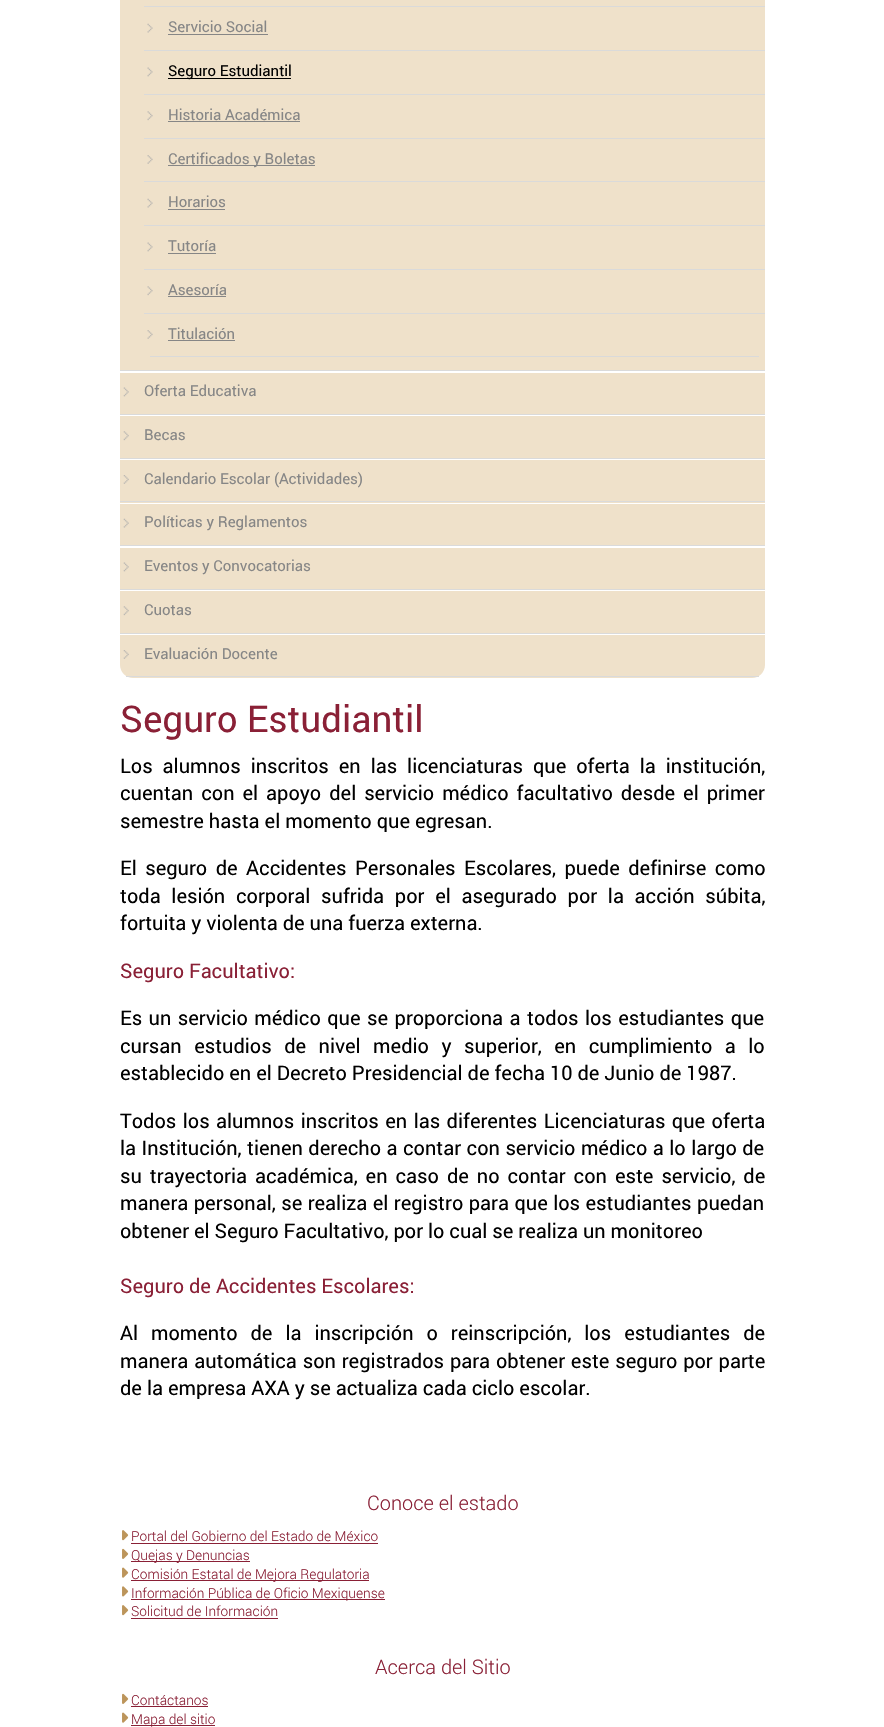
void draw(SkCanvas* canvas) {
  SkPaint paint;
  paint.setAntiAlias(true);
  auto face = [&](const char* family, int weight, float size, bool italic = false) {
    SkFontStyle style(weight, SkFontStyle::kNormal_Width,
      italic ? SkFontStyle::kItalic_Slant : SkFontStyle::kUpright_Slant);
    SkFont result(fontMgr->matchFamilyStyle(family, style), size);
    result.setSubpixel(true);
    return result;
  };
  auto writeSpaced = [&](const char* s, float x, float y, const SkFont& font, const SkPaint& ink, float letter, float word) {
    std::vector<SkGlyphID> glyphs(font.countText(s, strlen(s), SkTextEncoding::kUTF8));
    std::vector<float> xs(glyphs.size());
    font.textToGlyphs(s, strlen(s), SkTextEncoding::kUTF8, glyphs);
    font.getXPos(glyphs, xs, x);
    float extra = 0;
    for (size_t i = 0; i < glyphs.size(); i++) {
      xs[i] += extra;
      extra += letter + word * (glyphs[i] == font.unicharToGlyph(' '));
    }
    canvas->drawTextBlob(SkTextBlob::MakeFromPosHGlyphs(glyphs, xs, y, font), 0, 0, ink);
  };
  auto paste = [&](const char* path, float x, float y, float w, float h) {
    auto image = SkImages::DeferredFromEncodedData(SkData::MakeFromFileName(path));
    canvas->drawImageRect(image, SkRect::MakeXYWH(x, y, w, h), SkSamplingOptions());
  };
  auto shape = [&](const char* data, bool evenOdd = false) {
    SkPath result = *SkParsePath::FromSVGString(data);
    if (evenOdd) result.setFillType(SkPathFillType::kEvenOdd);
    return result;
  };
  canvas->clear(0xffffffff);
  {
    const struct { float x, y, w, h; SkColor color; } items[] = {
      {120, 0, 645, 370, 0xffefe1ca},
      {120, 370, 645, 1, 0xffdadada},
      {144, 6, 621, 1, 0xffdadada},
    };
    for (auto [x, y, w, h, color] : items) {
      paint.setColor(color);
      canvas->drawRect(SkRect::MakeXYWH(x, y, w, h), paint);
    }
  }
  paste("img/1.png", 147, 23, 6, 10);
  canvas->drawRect(SkRect::MakeXYWH(144, 50, 621, 1), paint);
  paint.setColor(0xff868686);
  canvas->drawRect(SkRect::MakeXYWH(168, 34, 100, 1), paint);
  paste("img/2.png", 147, 67, 6, 10);
  paint.setColor(0xffdadada);
  canvas->drawRect(SkRect::MakeXYWH(144, 94, 621, 1), paint);
  paint.setColor(0xff000000);
  canvas->drawRect(SkRect::MakeXYWH(168, 78, 123, 1), paint);
  paste("img/3.png", 147, 111, 6, 10);
  paint.setColor(0xffdadada);
  canvas->drawRect(SkRect::MakeXYWH(144, 138, 621, 1), paint);
  paint.setColor(0xff868686);
  canvas->drawRect(SkRect::MakeXYWH(168, 121, 132, 1), paint);
  paste("img/4.png", 147, 155, 6, 9);
  paint.setColor(0xffdadada);
  canvas->drawRect(SkRect::MakeXYWH(144, 181, 621, 1), paint);
  paint.setColor(0xff868686);
  canvas->drawRect(SkRect::MakeXYWH(168, 165, 147, 1), paint);
  paste("img/1.png", 147, 198, 6, 10);
  paint.setColor(0xffdadada);
  canvas->drawRect(SkRect::MakeXYWH(144, 225, 621, 1), paint);
  paint.setColor(0xff868686);
  canvas->drawRect(SkRect::MakeXYWH(168, 209, 57, 1), paint);
  paste("img/2.png", 147, 242, 6, 10);
  paint.setColor(0xffdadada);
  canvas->drawRect(SkRect::MakeXYWH(144, 269, 621, 1), paint);
  paint.setColor(0xff868686);
  canvas->drawRect(SkRect::MakeXYWH(168, 253, 48, 1), paint);
  paste("img/3.png", 147, 286, 6, 10);
  paint.setColor(0xffdadada);
  canvas->drawRect(SkRect::MakeXYWH(144, 313, 621, 1), paint);
  paint.setColor(0xff868686);
  canvas->drawRect(SkRect::MakeXYWH(168, 296, 58, 1), paint);
  paste("img/5.png", 147, 330, 6, 9);
  {
    const struct { float x, y, w, h; SkColor color; } items[] = {
      {150, 356, 609, 1, 0xffdadada},
      {168, 340, 67, 1, 0xff868686},
      {120, 373, 645, 41, 0xffefe1ca},
    };
    for (auto [x, y, w, h, color] : items) {
      paint.setColor(color);
      canvas->drawRect(SkRect::MakeXYWH(x, y, w, h), paint);
    }
  }
  paste("img/6.png", 123, 387, 6, 10);
  paint.setColor(0xffdadada);
  canvas->drawRect(SkRect::MakeXYWH(120, 414, 645, 1), paint);
  paint.setColor(0xffefe1ca);
  canvas->drawRect(SkRect::MakeXYWH(120, 416, 645, 42), paint);
  paste("img/7.png", 123, 431, 6, 10);
  paint.setColor(0xffdadada);
  canvas->drawRect(SkRect::MakeXYWH(120, 458, 645, 1), paint);
  paint.setColor(0xffefe1ca);
  canvas->drawRect(SkRect::MakeXYWH(120, 460, 645, 43), paint);
  paste("img/8.png", 123, 475, 6, 9);
  paint.setColor(0xffdadada);
  canvas->drawRect(SkRect::MakeXYWH(120, 501, 645, 1), paint);
  paint.setColor(0xffefe1ca);
  canvas->drawRect(SkRect::MakeXYWH(120, 504, 645, 41), paint);
  paste("img/9.png", 123, 518, 6, 10);
  paint.setColor(0xffdadada);
  canvas->drawRect(SkRect::MakeXYWH(120, 545, 645, 1), paint);
  paint.setColor(0xffefe1ca);
  canvas->drawRect(SkRect::MakeXYWH(120, 548, 645, 41), paint);
  paste("img/6.png", 123, 562, 6, 10);
  paint.setColor(0xffdadada);
  canvas->drawRect(SkRect::MakeXYWH(120, 589, 645, 1), paint);
  paint.setColor(0xffefe1ca);
  canvas->drawRect(SkRect::MakeXYWH(120, 591, 645, 42), paint);
  paste("img/7.png", 123, 606, 6, 10);
  paint.setColor(0xffdadada);
  canvas->drawRect(SkRect::MakeXYWH(120, 633, 645, 1), paint);
  paint.setColor(0xffefe1ca);
  canvas->drawPath(shape("M120 635H765V665C765 672 759 678 752 678H133C126 678 120 672 120 665Z"), paint);
  paste("img/10.png", 123, 650, 6, 9);
  paint.setColor(0xffdadada);
  canvas->drawRect(SkRect::MakeXYWH(126, 676, 633, 1), paint);
  paste("img/11.png", 122, 1530, 7, 11);
  paint.setColor(0xff8a2036);
  canvas->drawRect(SkRect::MakeXYWH(131, 1543, 247, 1), paint);
  paste("img/12.png", 122, 1548, 7, 11);
  canvas->drawRect(SkRect::MakeXYWH(131, 1561, 119, 1), paint);
  paste("img/13.png", 122, 1567, 7, 11);
  canvas->drawRect(SkRect::MakeXYWH(131, 1580, 238, 1), paint);
  paste("img/14.png", 122, 1586, 7, 11);
  canvas->drawRect(SkRect::MakeXYWH(131, 1599, 254, 1), paint);
  paste("img/11.png", 122, 1605, 7, 11);
  canvas->drawRect(SkRect::MakeXYWH(131, 1618, 147, 1), paint);
  paste("img/12.png", 122, 1693, 7, 11);
  canvas->drawRect(SkRect::MakeXYWH(131, 1706, 77, 1), paint);
  paste("img/13.png", 122, 1712, 7, 11);
  canvas->drawRect(SkRect::MakeXYWH(131, 1725, 84, 1), paint);
  auto f0 = face("roboto", 400, 15);
  paint.setColor(0xff868686);
  canvas->drawString("Servicio Social", 168, 32, f0, paint);
  paint.setColor(0xff000000);
  canvas->drawString("Seguro Estudiantil", 168, 76, f0, paint);
  paint.setColor(0xff868686);
  {
    const struct { const char* s; float x, y; } items[] = {
      {"Historia Académica", 168, 120},
      {"Certificados y Boletas", 168, 164},
      {"Horarios", 168, 207},
      {"Tutoría", 168, 251},
      {"Asesoría", 168, 295},
      {"Titulación", 168, 339},
      {"Oferta Educativa", 144, 396},
      {"Becas", 144, 440},
      {"Calendario Escolar (Actividades)", 144, 484},
      {"Políticas y Reglamentos", 144, 527},
      {"Eventos y Convocatorias", 144, 571},
      {"Cuotas", 144, 615},
      {"Evaluación Docente", 144, 659},
    };
    for (auto [s, x, y] : items) {
      canvas->drawString(s, x, y, f0, paint);
    }
  }
  auto f1 = face("roboto", 400, 36.75f);
  paint.setColor(0xff8a2036);
  canvas->drawString("Seguro Estudiantil", 120, 732, f1, paint);
  auto f2 = face("roboto", 400, 20);
  paint.setColor(0xff000000);
  writeSpaced("Los alumnos inscritos en las licenciaturas que oferta la institución,", 120, 773, f2, paint, 0, 5);
  writeSpaced("cuentan con el apoyo del servicio médico facultativo desde el primer", 120, 800, f2, paint, 0, 3);
  canvas->drawString("semestre hasta el momento que egresan.", 120, 828, f2, paint);
  writeSpaced("El seguro de Accidentes Personales Escolares, puede definirse como", 120, 875, f2, paint, 0, 3.5f);
  writeSpaced("toda lesión corporal sufrida por el asegurado por la acción súbita,", 120, 903, f2, paint, 0, 5.75f);
  canvas->drawString("fortuita y violenta de una fuerza externa.", 120, 930, f2, paint);
  paint.setColor(0xff8a2036);
  canvas->drawString("Seguro Facultativo:", 120, 978, f2, paint);
  paint.setColor(0xff000000);
  writeSpaced("Es un servicio médico que se proporciona a todos los estudiantes que", 120, 1025, f2, paint, 0, 1.5f);
  writeSpaced("cursan estudios de nivel medio y superior, en cumplimiento a lo", 120, 1053, f2, paint, 0, 7.5f);
  canvas->drawString("establecido en el Decreto Presidencial de fecha 10 de Junio de 1987.", 120, 1080, f2, paint);
  writeSpaced("Todos los alumnos inscritos en las diferentes Licenciaturas que oferta", 120, 1128, f2, paint, 0, 1.5f);
  writeSpaced("la Institución, tienen derecho a contar con servicio médico a lo largo de", 120, 1155, f2, paint, 0, 0.5f);
  writeSpaced("su trayectoria académica, en caso de no contar con este servicio, de", 120, 1183, f2, paint, 0, 3);
  writeSpaced("manera personal, se realiza el registro para que los estudiantes puedan", 120, 1210, f2, paint, 0, 0.5f);
  canvas->drawString("obtener el Seguro Facultativo, por lo cual se realiza un monitoreo", 120, 1238, f2, paint);
  paint.setColor(0xff8a2036);
  canvas->drawString("Seguro de Accidentes Escolares:", 120, 1293, f2, paint);
  paint.setColor(0xff000000);
  writeSpaced("Al momento de la inscripción o reinscripción, los estudiantes de", 120, 1340, f2, paint, 0, 8);
  writeSpaced("manera automática son registrados para obtener este seguro por parte", 120, 1368, f2, paint, 0, 0.9f);
  canvas->drawString("de la empresa AXA y se actualiza cada ciclo escolar.", 120, 1395, f2, paint);
  auto f3 = face("Roboto", 300, 20);
  paint.setColor(0xff8a2036);
  canvas->drawString("Conoce el estado", 367, 1510, f3, paint);
  auto f4 = face("Roboto", 300, 13.75f);
  {
    const struct { const char* s; float x, y; } items[] = {
      {"Portal del Gobierno del Estado de México", 131, 1541},
      {"Quejas y Denuncias", 131, 1560},
      {"Comisión Estatal de Mejora Regulatoria", 131, 1579},
      {"Información Pública de Oficio Mexiquense", 131, 1598},
      {"Solicitud de Información", 131, 1616},
    };
    for (auto [s, x, y] : items) {
      canvas->drawString(s, x, y, f4, paint);
    }
  }
  canvas->drawString("Acerca del Sitio", 375, 1674, f3, paint);
  canvas->drawString("Contáctanos", 131, 1705, f4, paint);
  canvas->drawString("Mapa del sitio", 131, 1724, f4, paint);
}
